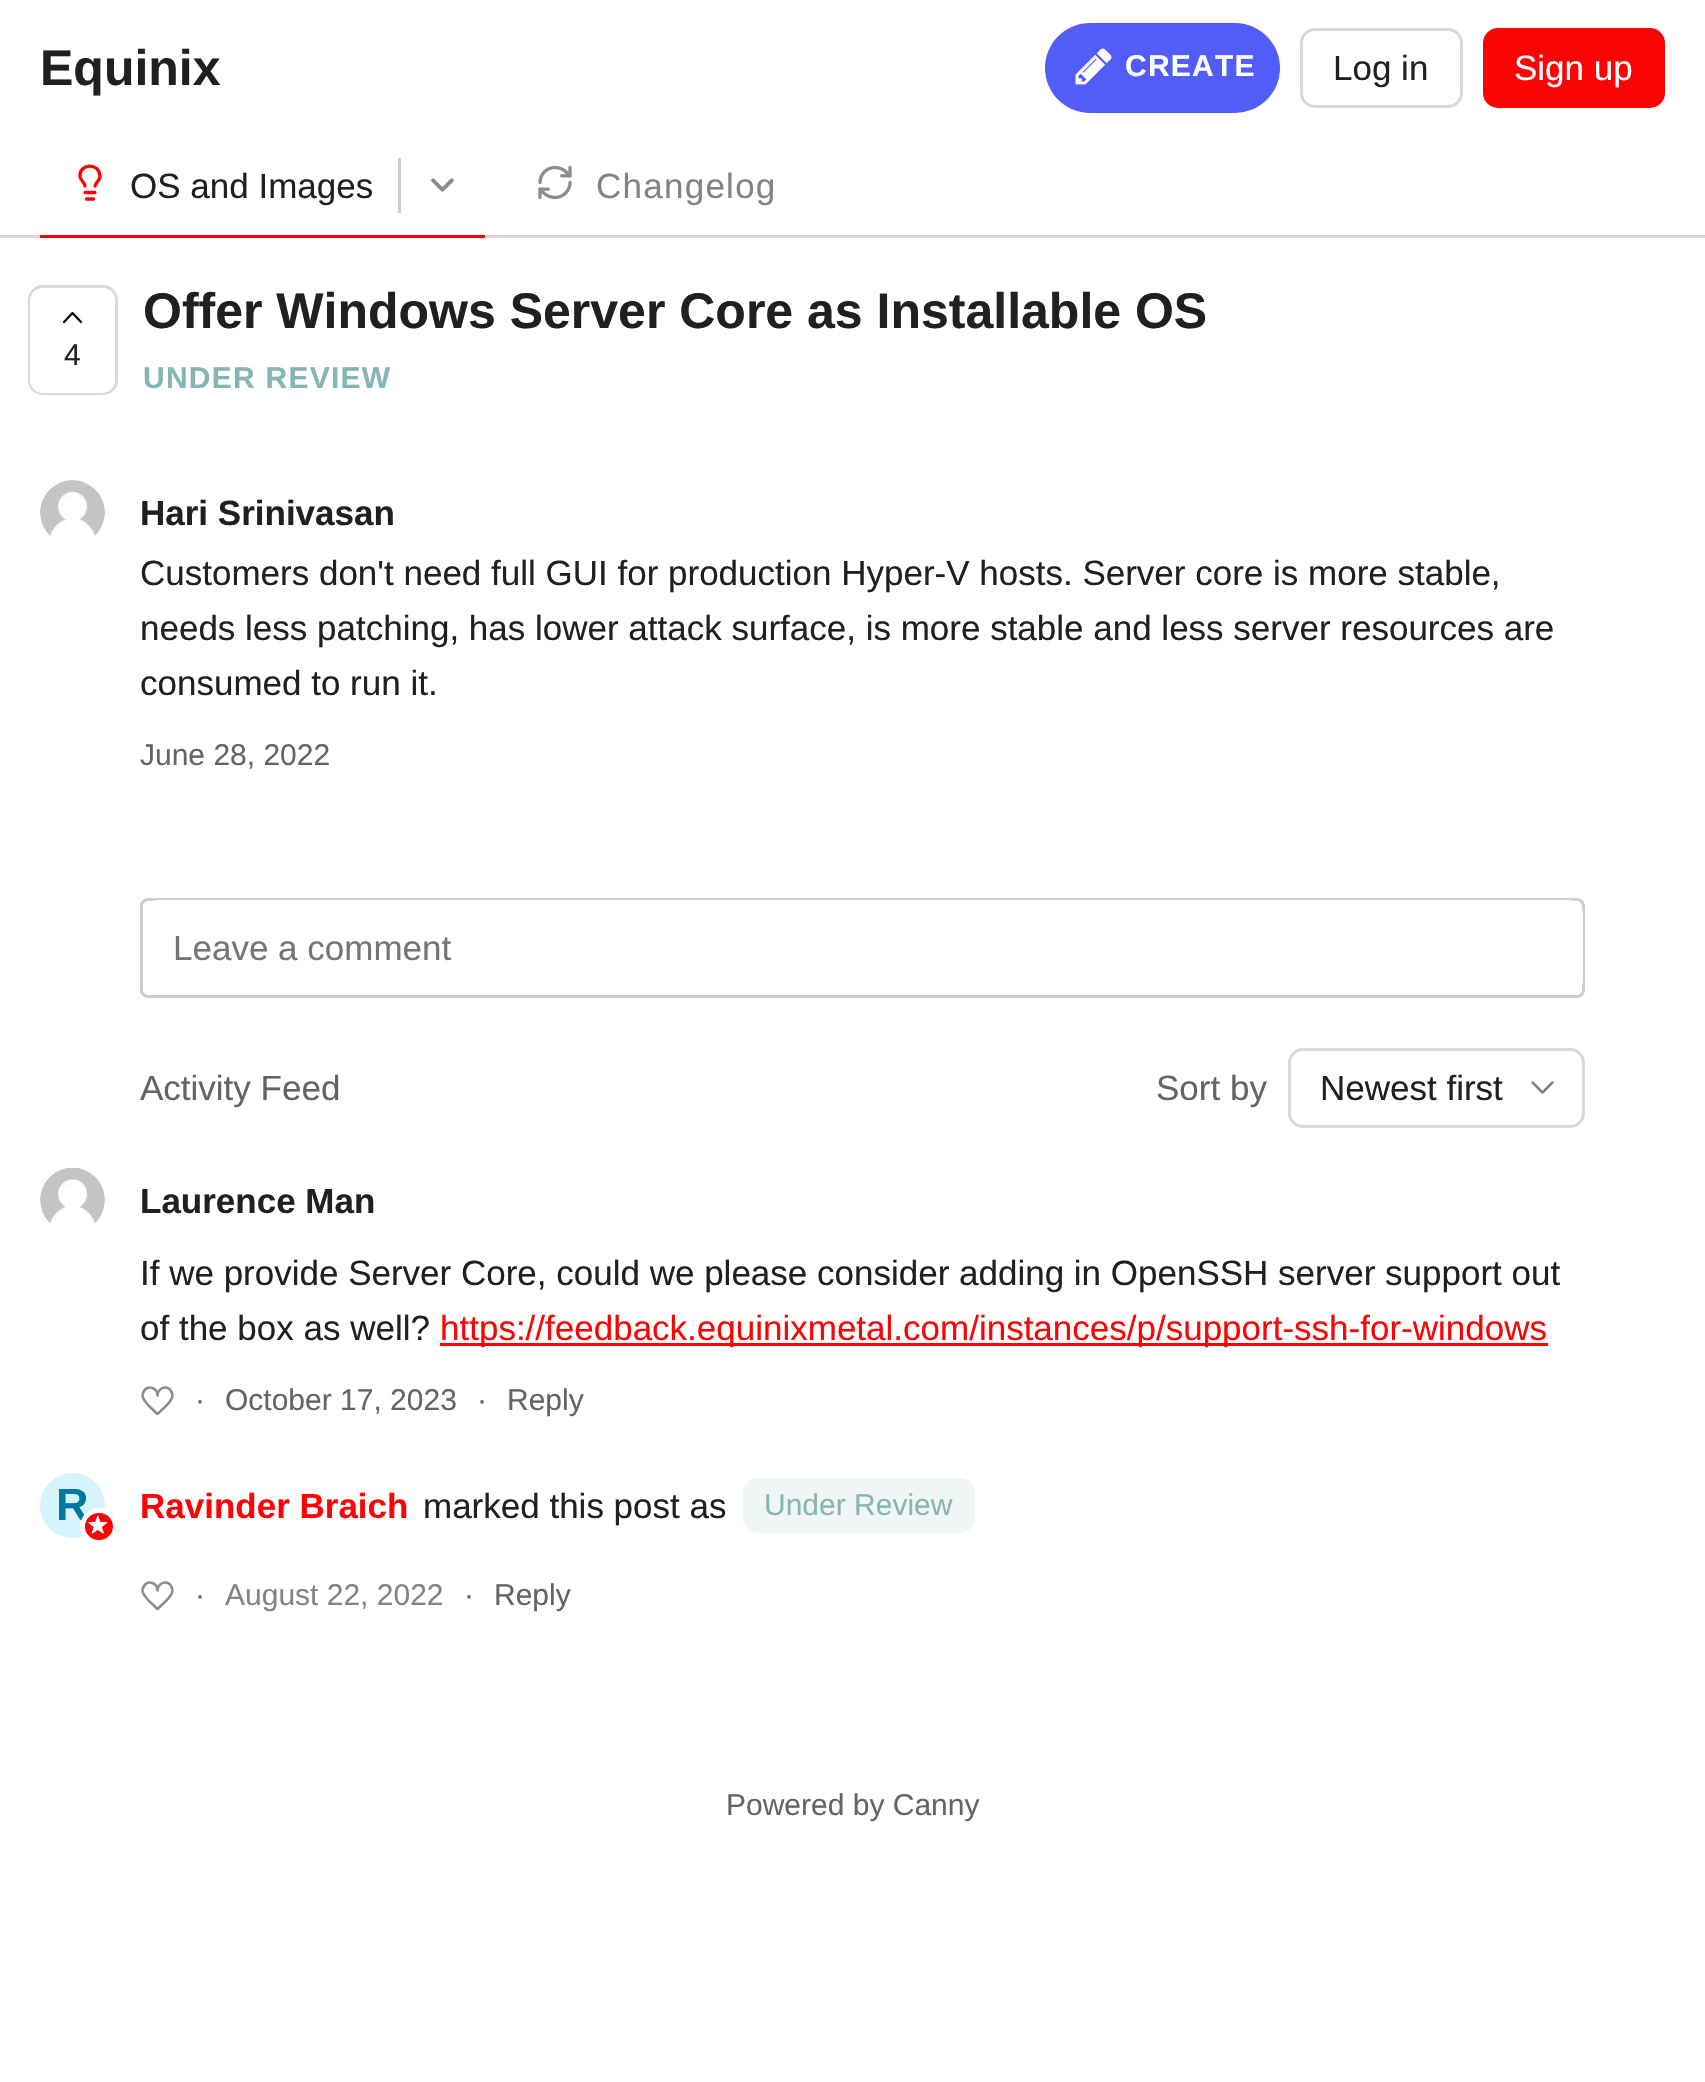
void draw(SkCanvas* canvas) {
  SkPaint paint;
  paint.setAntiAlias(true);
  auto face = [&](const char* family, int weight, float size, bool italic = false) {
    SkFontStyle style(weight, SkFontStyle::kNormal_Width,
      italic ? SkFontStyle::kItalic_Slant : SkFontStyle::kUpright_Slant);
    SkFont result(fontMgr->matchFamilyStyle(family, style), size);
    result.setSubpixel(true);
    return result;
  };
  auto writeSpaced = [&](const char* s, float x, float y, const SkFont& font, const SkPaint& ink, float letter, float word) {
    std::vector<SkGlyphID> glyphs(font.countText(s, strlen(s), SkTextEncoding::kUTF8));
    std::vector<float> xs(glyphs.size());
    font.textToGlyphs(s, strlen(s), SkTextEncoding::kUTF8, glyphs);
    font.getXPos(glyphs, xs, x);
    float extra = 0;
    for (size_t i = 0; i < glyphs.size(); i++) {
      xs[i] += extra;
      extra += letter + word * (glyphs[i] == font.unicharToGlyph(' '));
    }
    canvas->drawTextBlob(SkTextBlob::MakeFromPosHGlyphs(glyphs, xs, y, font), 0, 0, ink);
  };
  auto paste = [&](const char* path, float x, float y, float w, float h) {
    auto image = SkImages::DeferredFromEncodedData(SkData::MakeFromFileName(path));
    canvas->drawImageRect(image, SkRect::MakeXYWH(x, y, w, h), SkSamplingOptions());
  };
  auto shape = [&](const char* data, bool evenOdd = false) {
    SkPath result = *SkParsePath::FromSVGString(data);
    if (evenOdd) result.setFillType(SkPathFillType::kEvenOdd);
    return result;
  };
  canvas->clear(0xffffffff);
  paint.setColor(0xffd9d9d9);
  canvas->drawRect(SkRect::MakeXYWH(0, 235, 1705, 3), paint);
  paint.setColor(0xff525df9);
  canvas->drawRoundRect(SkRect::MakeXYWH(1045, 23, 235, 90), 45, 45, paint);
  paste("img/1.png", 1075, 48, 37, 37);
  paint.setStroke(true);
  paint.setStrokeWidth(3);
  paint.setColor(0xffd9d9d9);
  canvas->drawRoundRect(SkRect::MakeXYWH(1301.5f, 29.5f, 160, 77), 13.5f, 13.5f, paint);
  paint.setStroke(false);
  paint.setColor(0xfffc0304);
  canvas->drawRoundRect(SkRect::MakeXYWH(1484.5f, 29.5f, 179, 77), 13.5f, 13.5f, paint);
  paint.setStroke(true);
  canvas->drawRoundRect(SkRect::MakeXYWH(1484.5f, 29.5f, 179, 77), 13.5f, 13.5f, paint);
  paint.setStroke(false);
  canvas->drawRect(SkRect::MakeXYWH(40, 235, 445, 3), paint);
  paint.setStroke(true);
  paint.setStrokeWidth(3.3f);
  paint.setStrokeCap(SkPaint::kRound_Cap);
  paint.setStrokeJoin(SkPaint::kRound_Join);
  canvas->drawPath(shape("M95 186C96 182 100.5 180 100 176C99 162 79 163.5 80 176.5C80.5 180.5 84.5 182 85 186M85 192.5H95M86.5 199H93.5"), paint);
  paint.setStroke(false);
  paint.setColor(0xffcecece);
  canvas->drawRect(SkRect::MakeXYWH(398, 158, 3, 55), paint);
  paste("img/2.png", 431, 178, 23, 14);
  paste("img/3.png", 538, 165, 34, 35);
  paint.setStroke(true);
  paint.setStrokeWidth(3);
  paint.setStrokeCap(SkPaint::kButt_Cap);
  paint.setStrokeJoin(SkPaint::kMiter_Join);
  paint.setColor(0xffd9d9d9);
  canvas->drawRoundRect(SkRect::MakeXYWH(29.5f, 286.5f, 87, 107), 13.5f, 13.5f, paint);
  paint.setStroke(false);
  paint.setColor(0xffffffff);
  canvas->drawRoundRect(SkRect::MakeXYWH(30, 288, 85, 105), 13, 13, paint);
  paint.setStroke(true);
  paint.setStrokeWidth(2.2f);
  paint.setStrokeCap(SkPaint::kRound_Cap);
  paint.setStrokeJoin(SkPaint::kRound_Join);
  paint.setColor(0xff000000);
  canvas->drawPath(shape("M81 322L72.5 313L64 322"), paint);
  paste("img/4.png", 40, 480, 65, 56);
  paint.setStrokeWidth(3);
  paint.setStrokeCap(SkPaint::kButt_Cap);
  paint.setStrokeJoin(SkPaint::kMiter_Join);
  paint.setColor(0xffcecece);
  canvas->drawRoundRect(SkRect::MakeXYWH(141.5f, 899.5f, 1442, 97), 6.5f, 6.5f, paint);
  paint.setStroke(false);
  paint.setColor(0xffffffff);
  canvas->drawRoundRect(SkRect::MakeXYWH(143, 900, 1440, 95), 15, 15, paint);
  paint.setStroke(true);
  paint.setColor(0xffd9d9d9);
  canvas->drawRoundRect(SkRect::MakeXYWH(1289.5f, 1049.5f, 294, 77), 13.5f, 13.5f, paint);
  paint.setStrokeWidth(2.5f);
  paint.setStrokeCap(SkPaint::kRound_Cap);
  paint.setStrokeJoin(SkPaint::kRound_Join);
  paint.setColor(0xff838383);
  canvas->drawPath(shape("M1532.5 1082.5L1542.5 1092.5L1552.5 1082.5"), paint);
  paste("img/5.png", 40, 1167, 65, 57);
  paint.setStroke(false);
  paint.setColor(0xfffc0304);
  canvas->drawRect(SkRect::MakeXYWH(440, 1343, 1108, 3), paint);
  paint.setStroke(true);
  paint.setColor(0xff8d8d8d);
  canvas->drawPath(shape("M165 1387.5C161 1387.5 157.5 1391 157.5 1395.5C157.5 1388 148 1384.5 144 1391C140 1397 145 1401 148.5 1405.5L157.5 1414L166.5 1405.5C170 1401.5 175 1397 171 1391C170 1389 167.5 1387.5 165 1387.5Z"), paint);
  paint.setStroke(false);
  paint.setColor(0xffd5f4fd);
  canvas->drawCircle(72.5f, 1505.5f, 32.5f, paint);
  paint.setColor(0xfff0f6f6);
  canvas->drawRoundRect(SkRect::MakeXYWH(743, 1478, 232, 55), 15, 15, paint);
  paint.setStroke(true);
  paint.setColor(0xff8d8d8d);
  canvas->drawPath(shape("M165 1582.5C161 1582.5 157.5 1586 157.5 1590.5C157.5 1583 148 1579.5 144 1586C140 1592 145 1596 148.5 1600.5L157.5 1609L166.5 1600.5C170 1596.5 175 1592 171 1586C170 1584 167.5 1582.5 165 1582.5Z"), paint);
  auto f0 = face("Liberation Sans", 700, 50);
  paint.setStroke(false);
  paint.setColor(0xff202020);
  canvas->drawString("Equinix", 40, 85, f0, paint);
  auto f1 = face("Liberation Sans", 700, 30);
  paint.setColor(0xffffffff);
  writeSpaced("CREATE", 1125, 76, f1, paint, 1.25f, 0);
  auto f2 = face("Liberation Sans", 400, 35);
  paint.setColor(0xff202020);
  canvas->drawString("Log in", 1333, 80, f2, paint);
  paint.setColor(0xffffffff);
  canvas->drawString("Sign up", 1514, 80, f2, paint);
  paint.setColor(0xff202020);
  canvas->drawString("OS and Images", 130, 198, f2, paint);
  paint.setColor(0xff838383);
  writeSpaced("Changelog", 596, 198, f2, paint, 1.25f, 0);
  auto f3 = face("Liberation Sans", 400, 30);
  paint.setColor(0xff202020);
  canvas->drawString("4", 64, 365, f3, paint);
  canvas->drawString("Offer Windows Server Core as Installable OS", 143, 328, f0, paint);
  paint.setColor(0xff85b5b5);
  writeSpaced("UNDER REVIEW", 143, 388, f1, paint, 1.25f, 0);
  auto f4 = face("Liberation Sans", 700, 35);
  paint.setColor(0xff202020);
  canvas->drawString("Hari Srinivasan", 140, 525, f4, paint);
  {
    const struct { const char* s; float x, y; } items[] = {
      {"Customers don't need full GUI for production Hyper-V hosts. Server core is more stable,", 140, 585},
      {"needs less patching, has lower attack surface, is more stable and less server resources are", 140, 640},
      {"consumed to run it.", 140, 695},
    };
    for (auto [s, x, y] : items) {
      canvas->drawString(s, x, y, f2, paint);
    }
  }
  paint.setColor(0xff646464);
  canvas->drawString("June 28, 2022", 140, 765, f3, paint);
  paint.setColor(0xff757575);
  canvas->drawString("Leave a comment", 173, 960, f2, paint);
  paint.setColor(0xff646464);
  canvas->drawString("Activity Feed", 140, 1100, f2, paint);
  canvas->drawString("Sort by", 1156, 1100, f2, paint);
  paint.setColor(0xff202020);
  canvas->drawString("Newest first", 1320, 1100, f2, paint);
  canvas->drawString("Laurence Man", 140, 1213, f4, paint);
  canvas->drawString("If we provide Server Core, could we please consider adding in OpenSSH server support out", 140, 1285, f2, paint);
  canvas->drawString("of the box as well?", 140, 1340, f2, paint);
  paint.setColor(0xfffc0304);
  canvas->drawString("https://feedback.equinixmetal.com/instances/p/support-ssh-for-windows", 440, 1340, f2, paint);
  paint.setColor(0xff646464);
  {
    const struct { const char* s; float x, y; } items[] = {
      {"·", 195, 1410},
      {"October 17, 2023", 225, 1410},
      {"·", 477, 1410},
      {"Reply", 507, 1410},
    };
    for (auto [s, x, y] : items) {
      canvas->drawString(s, x, y, f3, paint);
    }
  }
  auto f5 = face("Liberation Sans", 700, 45);
  paint.setColor(0xff0078a1);
  canvas->drawString("R", 56, 1520, f5, paint);
  paint.setColor(0xfffc0304);
  canvas->drawRoundRect(SkRect::MakeXYWH(82.5f, 1510.5f, 33, 32), 16, 16, paint);
  paint.setStroke(true);
  paint.setStrokeWidth(5);
  paint.setStrokeCap(SkPaint::kButt_Cap);
  paint.setStrokeJoin(SkPaint::kMiter_Join);
  paint.setColor(0xffffffff);
  canvas->drawRoundRect(SkRect::MakeXYWH(82.5f, 1510.5f, 33, 32), 16, 16, paint);
  paste("img/6.png", 88, 1515, 20, 19);
  paint.setStroke(false);
  paint.setColor(0xfffc0304);
  canvas->drawString("Ravinder Braich", 140, 1518, f4, paint);
  paint.setColor(0xff202020);
  canvas->drawString("marked this post as", 423, 1518, f2, paint);
  paint.setColor(0xff85b5b5);
  canvas->drawString("Under Review", 764, 1515, f3, paint);
  paint.setColor(0xff646464);
  canvas->drawString("·", 195, 1605, f3, paint);
  paint.setColor(0xff838383);
  canvas->drawString("August 22, 2022", 225, 1605, f3, paint);
  paint.setColor(0xff646464);
  {
    const struct { const char* s; float x, y; } items[] = {
      {"·", 464, 1605},
      {"Reply", 494, 1605},
      {"Powered by Canny", 726, 1815},
    };
    for (auto [s, x, y] : items) {
      canvas->drawString(s, x, y, f3, paint);
    }
  }
}
